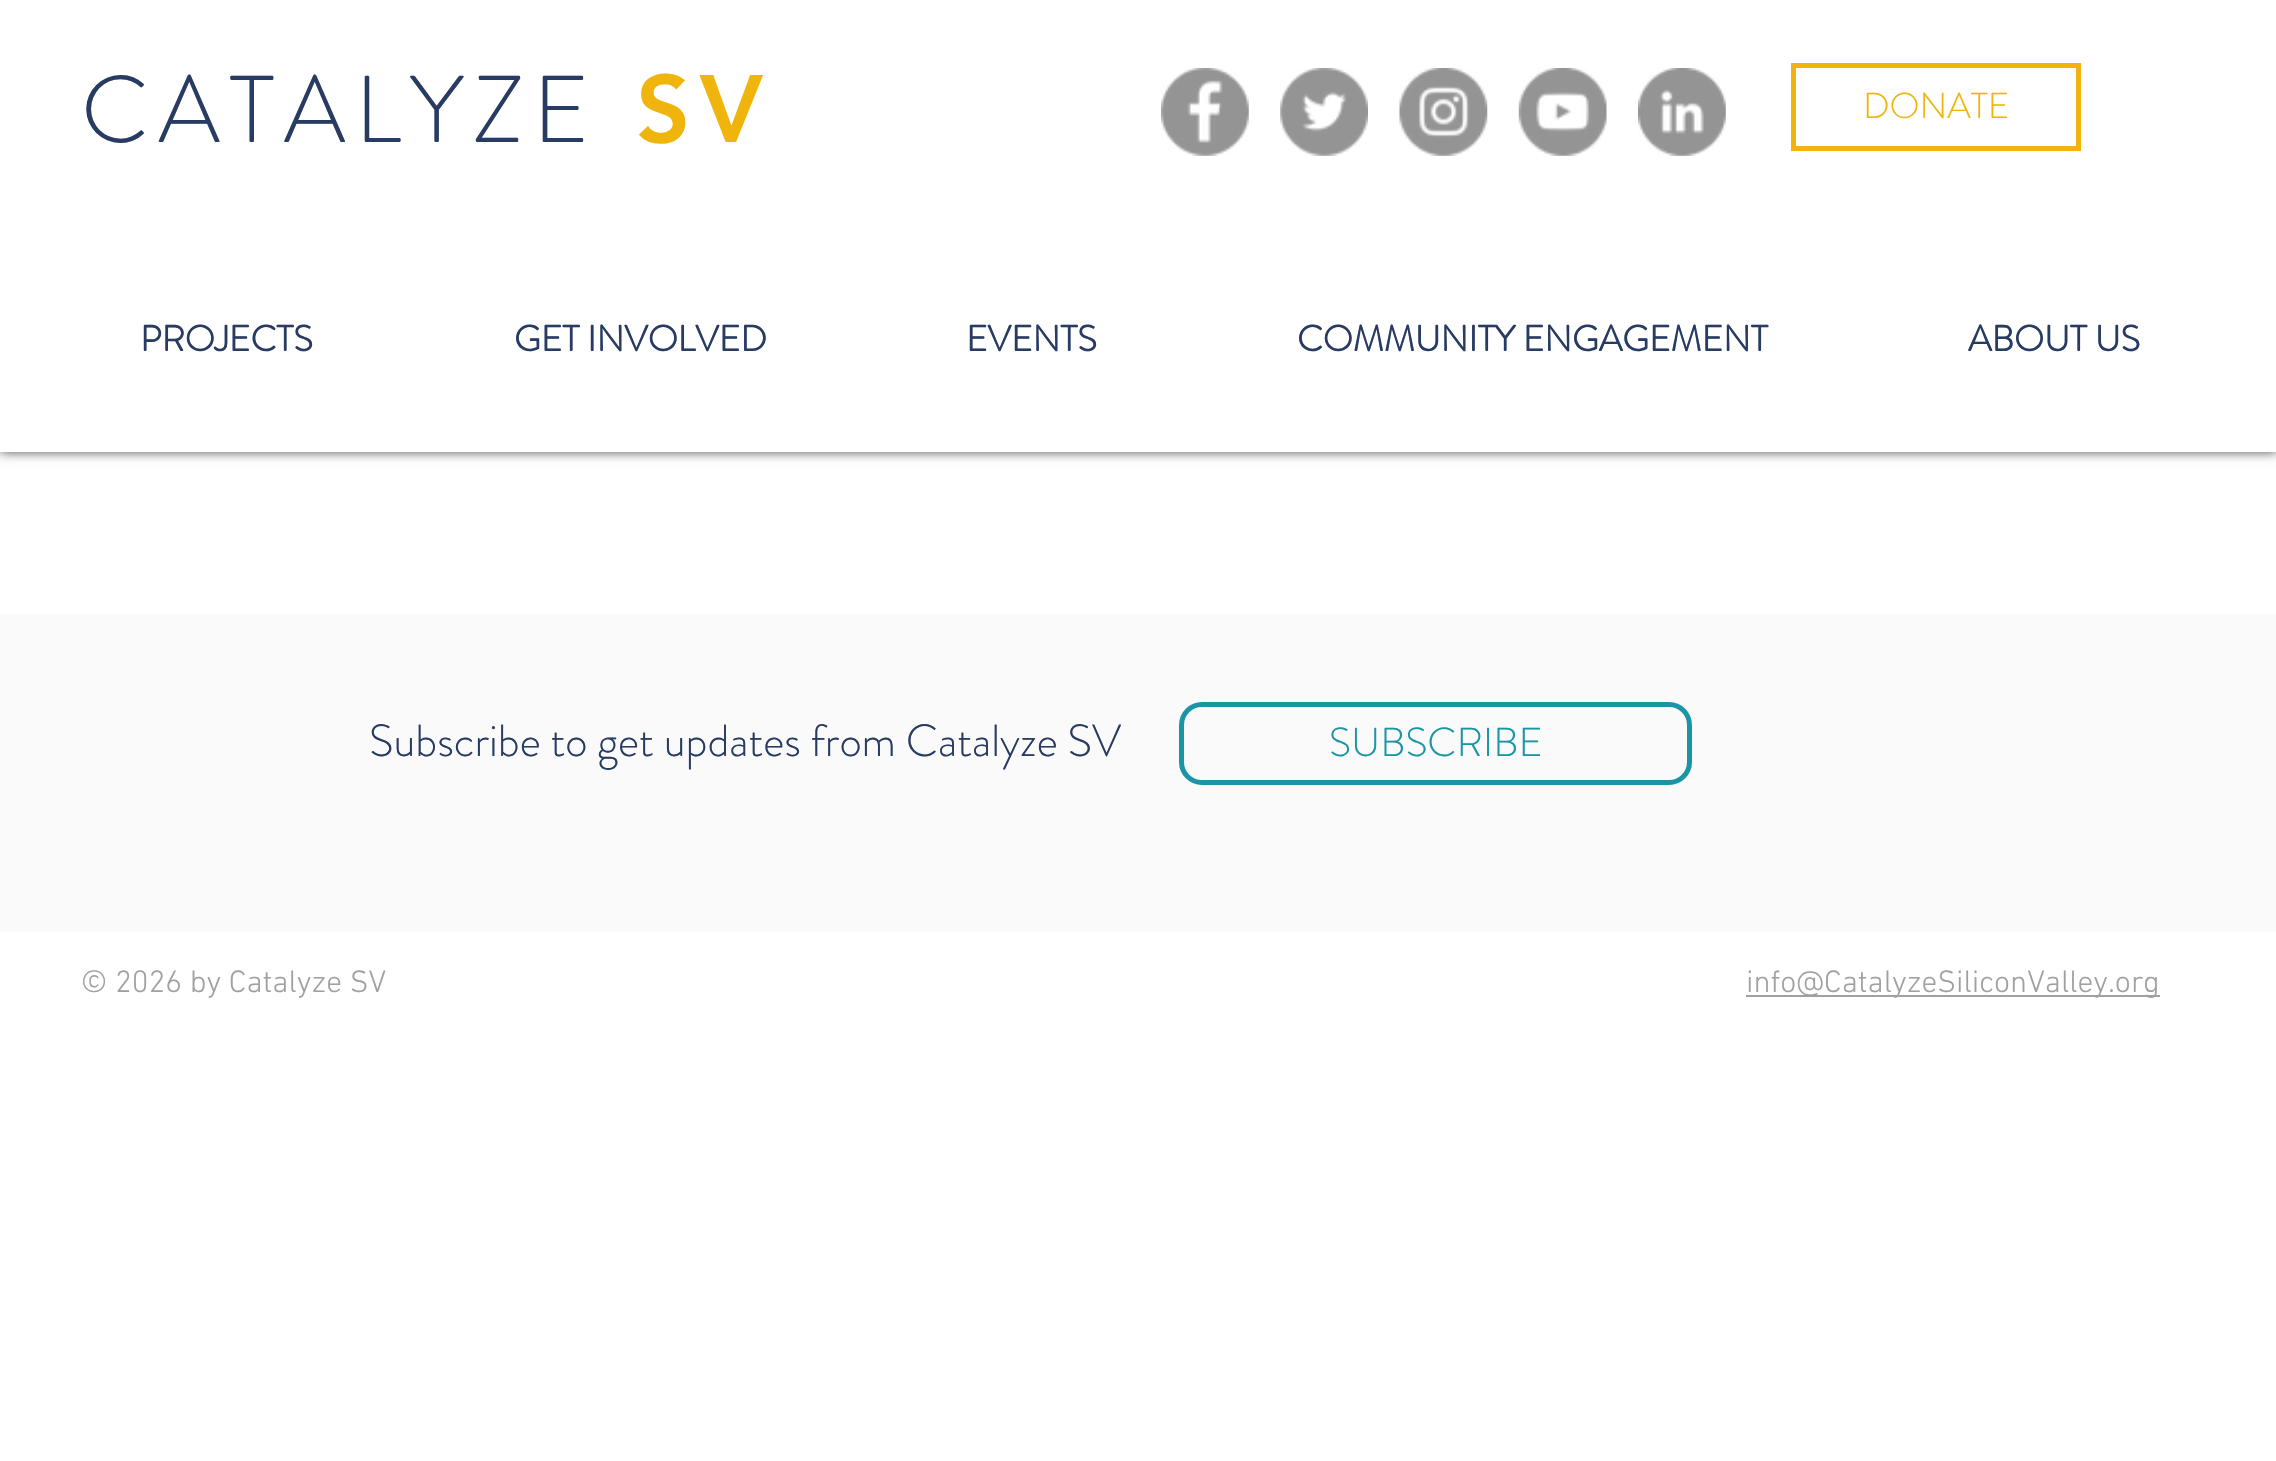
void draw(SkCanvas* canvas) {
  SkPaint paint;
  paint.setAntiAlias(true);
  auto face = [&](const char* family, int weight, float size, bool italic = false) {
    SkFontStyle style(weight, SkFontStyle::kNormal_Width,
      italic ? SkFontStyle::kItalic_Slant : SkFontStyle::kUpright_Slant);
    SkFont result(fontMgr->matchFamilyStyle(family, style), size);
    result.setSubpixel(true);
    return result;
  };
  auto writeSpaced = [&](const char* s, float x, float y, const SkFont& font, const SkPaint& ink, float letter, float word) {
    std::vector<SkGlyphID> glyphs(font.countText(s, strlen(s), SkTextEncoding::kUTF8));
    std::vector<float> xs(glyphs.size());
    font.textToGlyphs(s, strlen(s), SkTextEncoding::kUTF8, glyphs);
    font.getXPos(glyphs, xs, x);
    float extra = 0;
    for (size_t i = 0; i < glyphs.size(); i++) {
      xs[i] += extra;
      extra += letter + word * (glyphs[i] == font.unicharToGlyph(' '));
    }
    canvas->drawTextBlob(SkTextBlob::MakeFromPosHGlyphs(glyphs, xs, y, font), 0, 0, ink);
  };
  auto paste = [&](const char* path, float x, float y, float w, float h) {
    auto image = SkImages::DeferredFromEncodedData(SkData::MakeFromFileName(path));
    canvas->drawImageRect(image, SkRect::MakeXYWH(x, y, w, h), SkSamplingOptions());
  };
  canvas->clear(0xffffffff);
  paint.setColor(0xb3000000);
  paint.setMaskFilter(SkMaskFilter::MakeBlur(kNormal_SkBlurStyle, 5.5f));
  canvas->drawRect(SkRect::MakeXYWH(0, 0, 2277, 452), paint);
  paint.setMaskFilter(nullptr);
  paint.setColor(0xffffffff);
  canvas->drawRect(SkRect::MakeXYWH(0, 0, 2276, 452), paint);
  paste("img/1.png", 1161, 68, 88, 88);
  paste("img/2.png", 1280, 68, 88, 88);
  paste("img/3.png", 1399, 68, 89, 88);
  paste("img/4.png", 1518, 68, 89, 88);
  paste("img/5.png", 1638, 68, 88, 88);
  paint.setStroke(true);
  paint.setStrokeWidth(5);
  paint.setColor(0xfff0b50c);
  canvas->drawRect(SkRect::MakeXYWH(1793.5f, 65.5f, 285, 83), paint);
  paint.setStroke(false);
  paint.setColor(0xfffafafa);
  canvas->drawRect(SkRect::MakeXYWH(0, 614, 2276, 318), paint);
  paint.setStroke(true);
  paint.setColor(0xff1995a6);
  canvas->drawRoundRect(SkRect::MakeXYWH(1181.5f, 704.5f, 508, 78), 20.5f, 20.5f, paint);
  paint.setStroke(false);
  paint.setColor(0xffa0a09f);
  canvas->drawRect(SkRect::MakeXYWH(1746, 995, 414, 2), paint);
  auto f0 = face("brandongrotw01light", 300, 94.5f);
  paint.setColor(0xff283b62);
  writeSpaced("CATALYZE", 81, 142, f0, paint, 9.5f, 0);
  auto f1 = face("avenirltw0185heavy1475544", 900, 94.5f);
  paint.setColor(0xfff0b50c);
  writeSpaced("SV", 636, 142, f1, paint, 9.5f, 0);
  auto f2 = face("brandongrotw01light", 300, 36);
  canvas->drawString("DONATE", 1863, 118, f2, paint);
  auto f3 = face("brandongrotw01light", 700, 36);
  paint.setColor(0xff283b62);
  {
    const struct { const char* s; float x, y; } items[] = {
      {"PROJECTS", 140, 351},
      {"GET INVOLVED", 514, 351},
      {"EVENTS", 966, 351},
      {"COMMUNITY ENGAGEMENT", 1297, 351},
      {"ABOUT US", 1968, 351},
    };
    for (auto [s, x, y] : items) {
      canvas->drawString(s, x, y, f3, paint);
    }
  }
  auto f4 = face("brandongrotw01light", 300, 45);
  canvas->drawString("Subscribe to get updates from Catalyze SV", 369, 756, f4, paint);
  auto f5 = face("brandongrotw01light", 300, 40.5f);
  paint.setColor(0xff1995a6);
  canvas->drawString("SUBSCRIBE", 1329, 756, f5, paint);
  auto f6 = face("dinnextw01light", 300, 31.5f);
  paint.setColor(0xffa0a09f);
  canvas->drawString("© 2026 by Catalyze SV", 81, 992, f6, paint);
  canvas->drawString("info@CatalyzeSiliconValley.org", 1746, 992, f6, paint);
}
